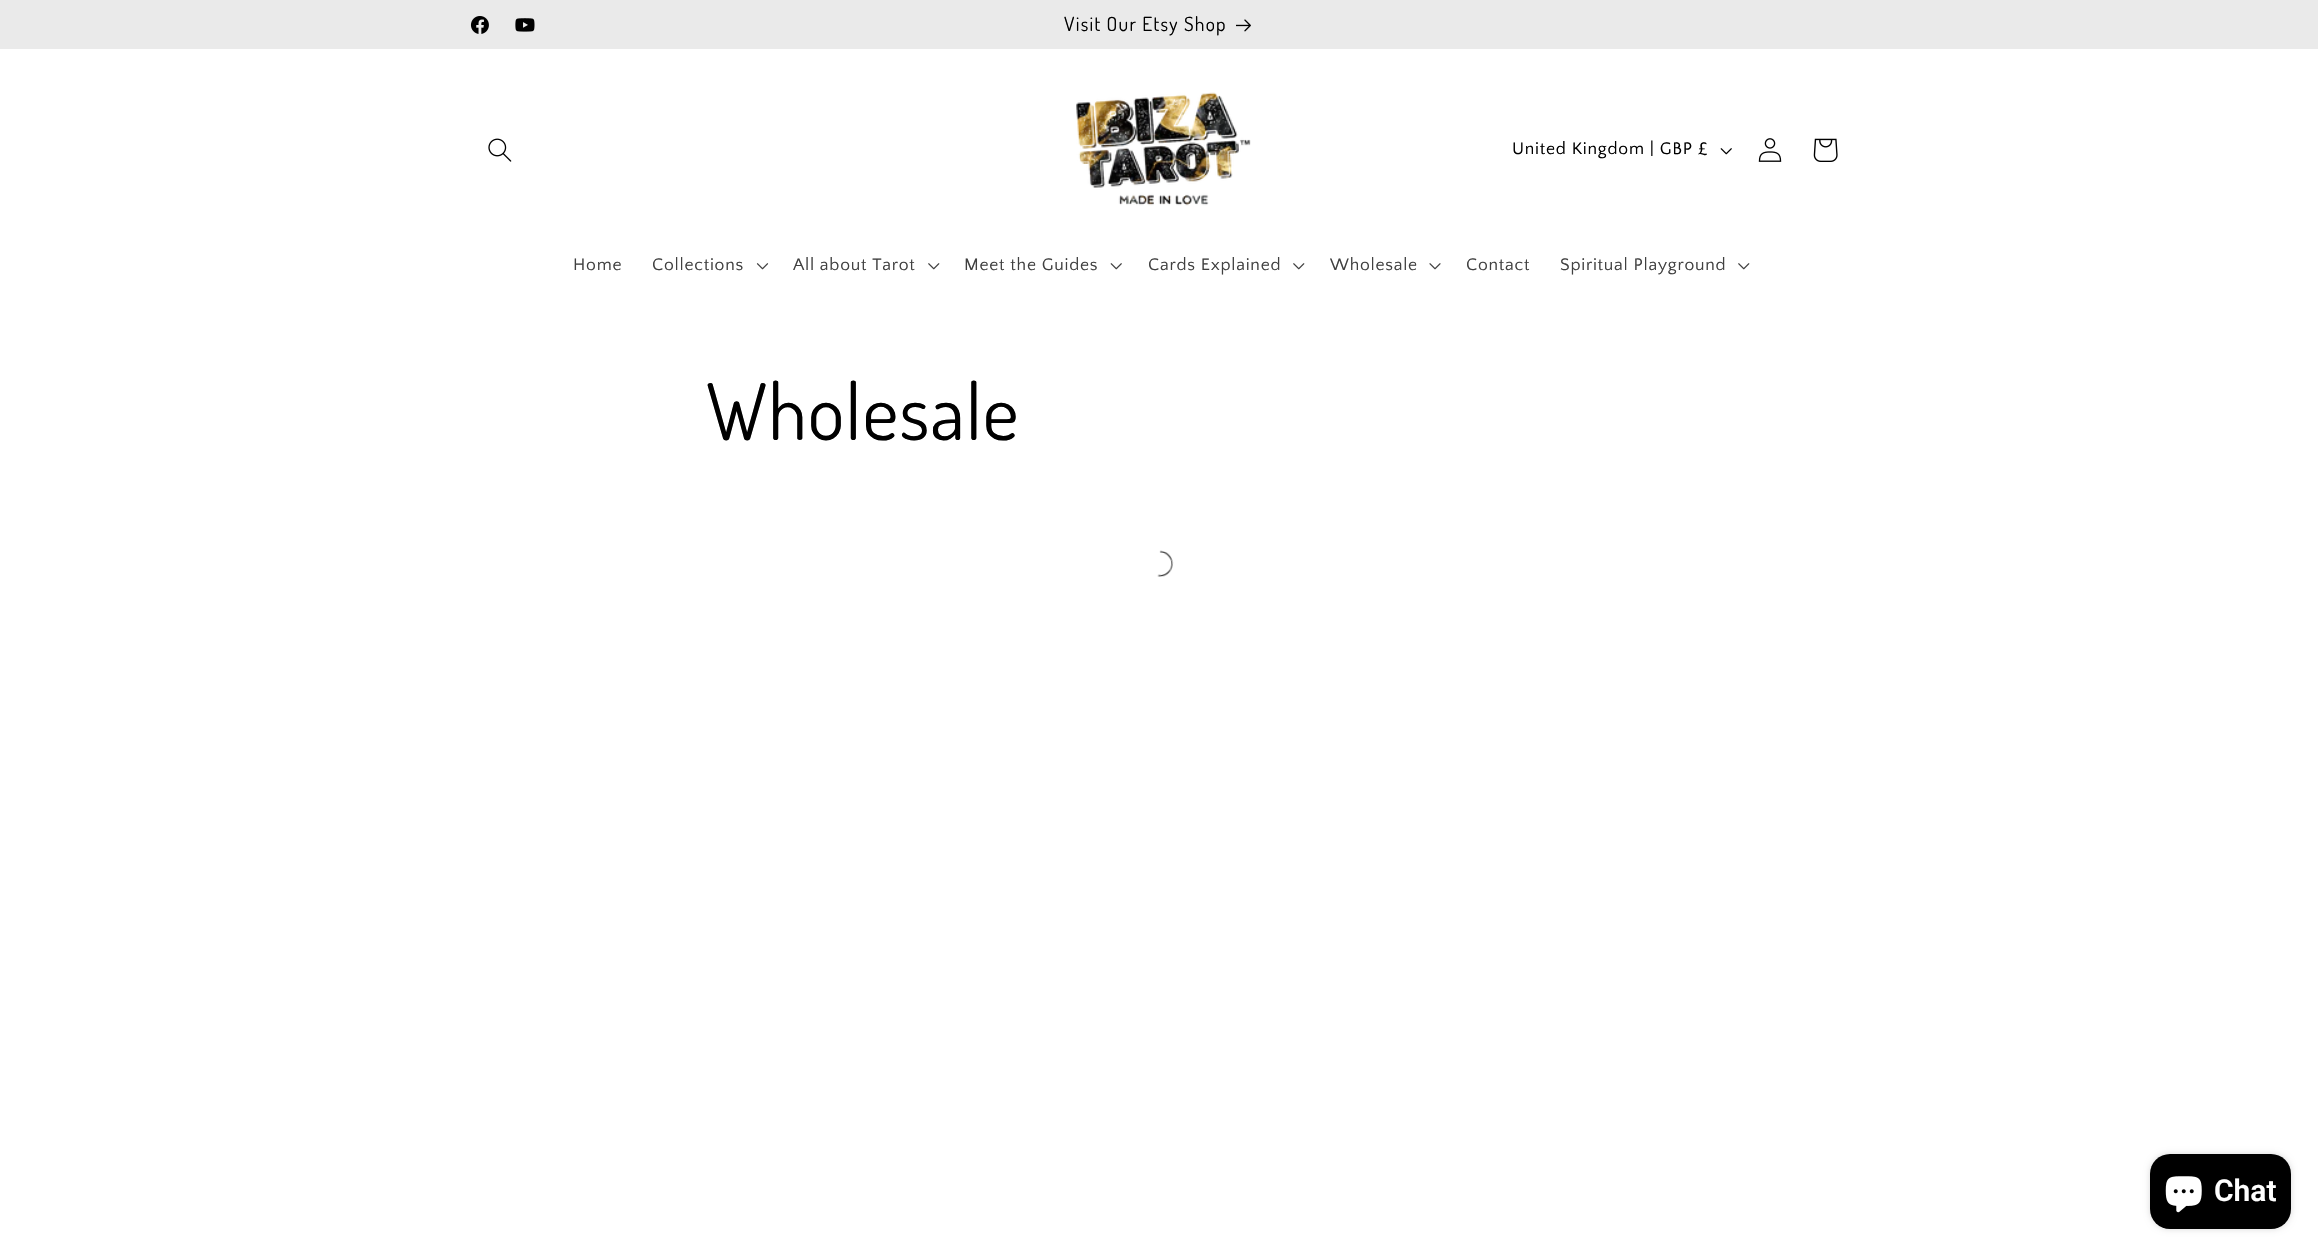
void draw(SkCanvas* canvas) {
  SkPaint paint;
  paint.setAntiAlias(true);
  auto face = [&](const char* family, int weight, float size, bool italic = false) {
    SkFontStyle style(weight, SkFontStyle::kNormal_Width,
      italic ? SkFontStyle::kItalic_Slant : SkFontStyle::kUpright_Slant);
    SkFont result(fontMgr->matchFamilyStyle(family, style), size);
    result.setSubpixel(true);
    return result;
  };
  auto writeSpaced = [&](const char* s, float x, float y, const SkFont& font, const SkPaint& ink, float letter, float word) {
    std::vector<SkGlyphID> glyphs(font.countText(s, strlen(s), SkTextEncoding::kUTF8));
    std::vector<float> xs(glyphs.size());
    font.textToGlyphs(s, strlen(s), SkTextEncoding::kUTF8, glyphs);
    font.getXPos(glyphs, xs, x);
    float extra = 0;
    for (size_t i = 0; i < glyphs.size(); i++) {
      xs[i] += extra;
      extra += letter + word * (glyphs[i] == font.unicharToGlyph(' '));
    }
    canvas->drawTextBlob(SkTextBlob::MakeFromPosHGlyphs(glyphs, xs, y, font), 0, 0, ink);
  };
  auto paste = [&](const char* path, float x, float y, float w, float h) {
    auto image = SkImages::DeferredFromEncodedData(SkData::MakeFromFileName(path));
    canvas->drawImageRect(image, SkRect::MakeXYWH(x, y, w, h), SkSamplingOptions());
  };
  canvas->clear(0xffffffff);
  paint.setColor(0xffeaeaea);
  canvas->drawRect(SkRect::MakeXYWH(0, 0, 2318, 49), paint);
  paste("img/1.png", 470, 16, 19, 18);
  paste("img/2.png", 515, 18, 20, 14);
  paste("img/3.png", 1236, 19, 15, 13);
  paste("img/4.png", 488, 138, 24, 24);
  paste("img/5.png", 1076, 92, 175, 114);
  paste("img/6.png", 1720, 148, 12, 7);
  paste("img/7.png", 1758, 138, 24, 24);
  paste("img/8.png", 1813, 138, 25, 24);
  paste("img/9.png", 756, 263, 13, 7);
  paste("img/10.png", 928, 263, 12, 7);
  paste("img/11.png", 1110, 263, 12, 7);
  paste("img/10.png", 1293, 263, 12, 7);
  paste("img/12.png", 1429, 263, 12, 7);
  paste("img/10.png", 1738, 263, 12, 7);
  paste("img/13.png", 1157, 550, 17, 27);
  paint.setColor(0x26000000);
  paint.setMaskFilter(SkMaskFilter::MakeBlur(kNormal_SkBlurStyle, 3));
  canvas->drawRoundRect(SkRect::MakeXYWH(2150, 1154, 141, 75), 20, 20, paint);
  paint.setMaskFilter(nullptr);
  paint.setColor(0xff000000);
  canvas->drawRoundRect(SkRect::MakeXYWH(2150, 1154, 141, 75), 20, 20, paint);
  paste("img/14.png", 2165, 1176, 37, 37);
  auto f0 = face("Dosis", 400, 19.5f);
  writeSpaced("Visit Our Etsy Shop", 1064, 31, f0, paint, 1.25f, 0);
  auto f1 = face("Quattrocento Sans", 400, 17.5f);
  writeSpaced("United Kingdom | GBP £", 1512, 154, f1, paint, 0.75f, 0);
  paint.setColor(0xff404040);
  {
    const struct { const char* s; float x, y; } items[] = {
      {"Home", 573, 270},
      {"Collections", 652, 270},
      {"All about Tarot", 793, 270},
      {"Meet the Guides", 964, 270},
      {"Cards Explained", 1148, 270},
      {"Wholesale", 1330, 270},
      {"Contact", 1466, 270},
      {"Spiritual Playground", 1560, 270},
    };
    for (auto [s, x, y] : items) {
      writeSpaced(s, x, y, f1, paint, 0.75f, 0);
    }
  }
  auto f2 = face("Dosis", 400, 78);
  paint.setColor(0xff000000);
  writeSpaced("Wholesale", 706, 440, f2, paint, 1, 0);
  auto f3 = face("Roboto", 600, 30);
  paint.setColor(0xffffffff);
  canvas->drawString("Chat", 2214, 1201, f3, paint);
}
